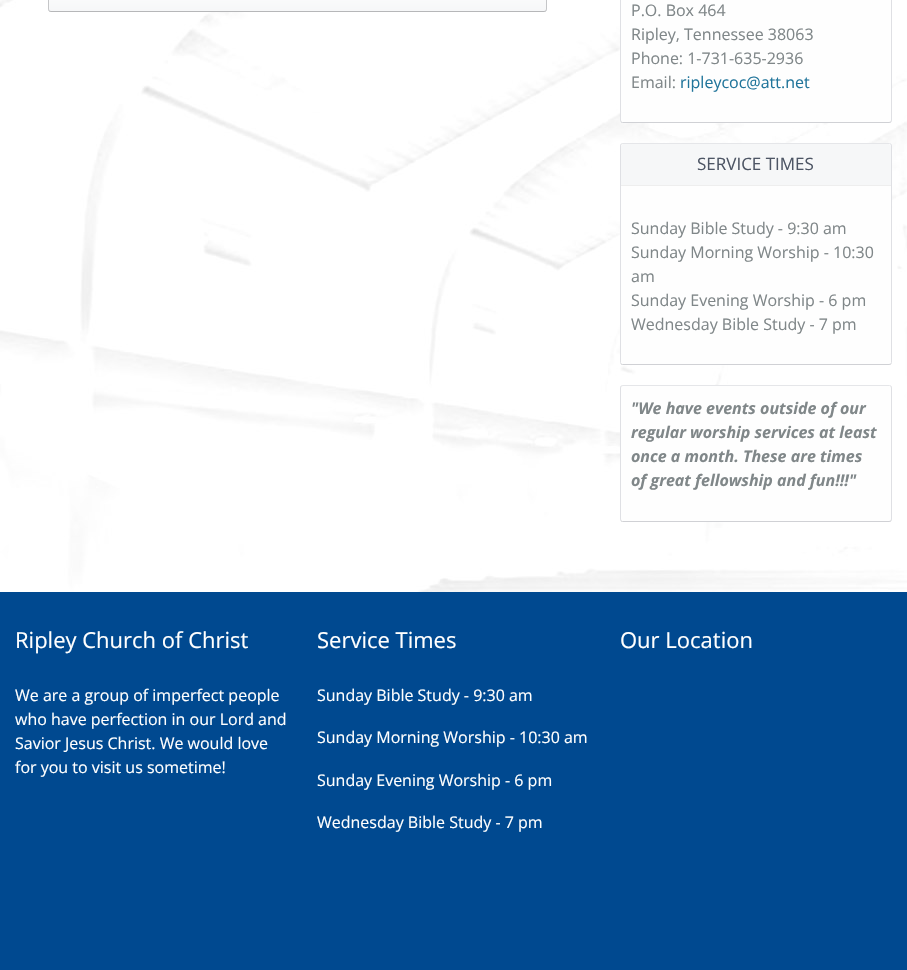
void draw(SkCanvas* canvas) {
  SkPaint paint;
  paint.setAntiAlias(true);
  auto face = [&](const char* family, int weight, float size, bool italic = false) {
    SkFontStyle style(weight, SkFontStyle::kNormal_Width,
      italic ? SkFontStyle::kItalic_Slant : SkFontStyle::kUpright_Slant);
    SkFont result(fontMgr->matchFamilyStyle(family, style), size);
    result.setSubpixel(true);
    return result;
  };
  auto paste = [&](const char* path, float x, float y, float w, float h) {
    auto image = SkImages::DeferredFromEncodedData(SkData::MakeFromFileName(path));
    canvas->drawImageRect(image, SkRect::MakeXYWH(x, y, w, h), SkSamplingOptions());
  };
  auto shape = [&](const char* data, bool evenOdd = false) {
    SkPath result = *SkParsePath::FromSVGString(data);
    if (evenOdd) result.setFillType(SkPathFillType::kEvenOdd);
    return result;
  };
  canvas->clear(0xffffffff);
  paste("img/1.png", 0, 0, 907, 592);
  canvas->save();
  canvas->clipPath(shape("M51-17H544C545.5-17 547-15.5 547-14V9C547 10.5 545.5 12 544 12H51C49.5 12 48 10.5 48 9V-14C48-15.5 49.5-17 51-17Z"), true);
  {
    const SkColor colors[] = {0xffffffff, 0xfff6f7f8};
    const float stops[] = {0, 1};
    const SkPoint ends[] = {{298, -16}, {298, 11}};
    paint.setShader(SkGradientShader::MakeLinear(ends, colors, stops, 2, SkTileMode::kClamp));
    paint.setAlpha(255);
  }
  canvas->drawRect(SkRect::MakeXYWH(48, 0, 499, 11), paint);
  canvas->restore();
  paint.setStroke(true);
  paint.setStrokeWidth(1);
  paint.setShader(nullptr);
  paint.setColor(0xffc5c6c8);
  canvas->drawPath(shape("M546-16C546-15.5 546.5-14.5 546.5-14V9C546.5 9.5 546 10.5 546 11"), paint);
  paint.setColor(0xffb6b7b9);
  canvas->drawPath(shape("M546 11L544 11.5H51L49 11"), paint);
  paint.setColor(0xffc5c6c8);
  canvas->drawPath(shape("M49 11C49 10.5 48.5 9.5 48.5 9V-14C48.5-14.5 49-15.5 49-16"), paint);
  paint.setStroke(false);
  paint.setColor(0xfffefefe);
  canvas->drawRoundRect(SkRect::MakeXYWH(620, -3, 272, 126), 3, 3, paint);
  paint.setStroke(true);
  paint.setColor(0xffdfe0e4);
  canvas->drawPath(shape("M891-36L891.5-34V120L891 122"), paint);
  paint.setColor(0xffd0d1d5);
  canvas->drawPath(shape("M891 122L889 122.5H622.5L621 122"), paint);
  paint.setColor(0xffdfe0e4);
  canvas->drawPath(shape("M621 122L620.5 120V-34L621-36"), paint);
  paint.setStroke(false);
  paint.setColor(0xfffefefe);
  canvas->drawRoundRect(SkRect::MakeXYWH(620, 143, 272, 222), 3, 3, paint);
  paint.setStroke(true);
  paint.setColor(0xffe5e6e9);
  canvas->drawPath(shape("M621 144L623 143.5H889.5L891 144"), paint);
  paint.setColor(0xffdfe0e4);
  canvas->drawPath(shape("M891 144L891.5 146V362.5L891 364"), paint);
  paint.setColor(0xffd0d1d5);
  canvas->drawPath(shape("M891 364L889 364.5H622.5L621 364"), paint);
  paint.setColor(0xffdfe0e4);
  canvas->drawPath(shape("M621 364L620.5 362.5V182V146L621 144"), paint);
  paint.setStroke(false);
  paint.setColor(0xfff6f7f8);
  canvas->drawPath(shape("M624 144H888C889.5 144 891 145.5 891 147V186H621V147C621 145.5 622.5 144 624 144Z"), paint);
  paint.setColor(0xffeeeeee);
  canvas->drawRect(SkRect::MakeXYWH(621, 185, 270, 1), paint);
  paint.setColor(0xfffefefe);
  canvas->drawRoundRect(SkRect::MakeXYWH(620, 385, 272, 137), 3, 3, paint);
  paint.setStroke(true);
  paint.setColor(0xffe5e6e9);
  canvas->drawPath(shape("M621 386L623 385.5H889.5L891 386"), paint);
  paint.setColor(0xffdfe0e4);
  canvas->drawPath(shape("M891 386L891.5 388V497V519L891 521"), paint);
  paint.setColor(0xffd0d1d5);
  canvas->drawPath(shape("M891 521L889 521.5H622.5L621 521"), paint);
  paint.setColor(0xffdfe0e4);
  canvas->drawPath(shape("M621 521L620.5 519V388L621 386"), paint);
  paint.setStroke(false);
  paint.setColor(0xff004990);
  canvas->drawRect(SkRect::MakeXYWH(0, 592, 907, 378), paint);
  auto f0 = face("Open Sans", 400, 16);
  paint.setColor(0xff808789);
  {
    const struct { const char* s; float x, y; } items[] = {
      {"P.O. Box 464", 631, 16},
      {"Ripley, Tennessee 38063", 631, 40},
      {"Phone: 1-731-635-2936", 631, 64},
      {"Email:", 631, 88},
    };
    for (auto [s, x, y] : items) {
      canvas->drawString(s, x, y, f0, paint);
    }
  }
  paint.setColor(0xff21759b);
  canvas->drawString("ripleycoc@att.net", 680, 88, f0, paint);
  auto f1 = face("Open Sans", 400, 17);
  paint.setColor(0xff4e5665);
  canvas->drawString("SERVICE TIMES", 697, 170, f1, paint);
  paint.setColor(0xff808789);
  {
    const struct { const char* s; float x, y; } items[] = {
      {"Sunday Bible Study - 9:30 am", 631, 234},
      {"Sunday Morning Worship - 10:30", 631, 258},
      {"am", 631, 282},
      {"Sunday Evening Worship - 6 pm", 631, 306},
      {"Wednesday Bible Study - 7 pm", 631, 330},
    };
    for (auto [s, x, y] : items) {
      canvas->drawString(s, x, y, f0, paint);
    }
  }
  auto f2 = face("Open Sans", 700, 16, true);
  {
    const struct { const char* s; float x, y; } items[] = {
      {"\"We have events outside of our", 631, 414},
      {"regular worship services at least", 631, 438},
      {"once a month. These are times", 631, 462},
      {"of great fellowship and fun!!!\"", 631, 486},
    };
    for (auto [s, x, y] : items) {
      canvas->drawString(s, x, y, f2, paint);
    }
  }
  auto f3 = face("Open Sans", 400, 22);
  paint.setColor(0xffffffff);
  canvas->drawString("Ripley Church of Christ", 15, 648, f3, paint);
  {
    const struct { const char* s; float x, y; } items[] = {
      {"We are a group of imperfect people", 15, 701},
      {"who have perfection in our Lord and", 15, 725},
      {"Savior Jesus Christ. We would love", 15, 749},
      {"for you to visit us sometime!", 15, 773},
    };
    for (auto [s, x, y] : items) {
      canvas->drawString(s, x, y, f0, paint);
    }
  }
  canvas->drawString("Service Times", 317, 648, f3, paint);
  {
    const struct { const char* s; float x, y; } items[] = {
      {"Sunday Bible Study - 9:30 am", 317, 701},
      {"Sunday Morning Worship - 10:30 am", 317, 743},
      {"Sunday Evening Worship - 6 pm", 317, 786},
      {"Wednesday Bible Study - 7 pm", 317, 828},
    };
    for (auto [s, x, y] : items) {
      canvas->drawString(s, x, y, f0, paint);
    }
  }
  canvas->drawString("Our Location", 620, 648, f3, paint);
}
